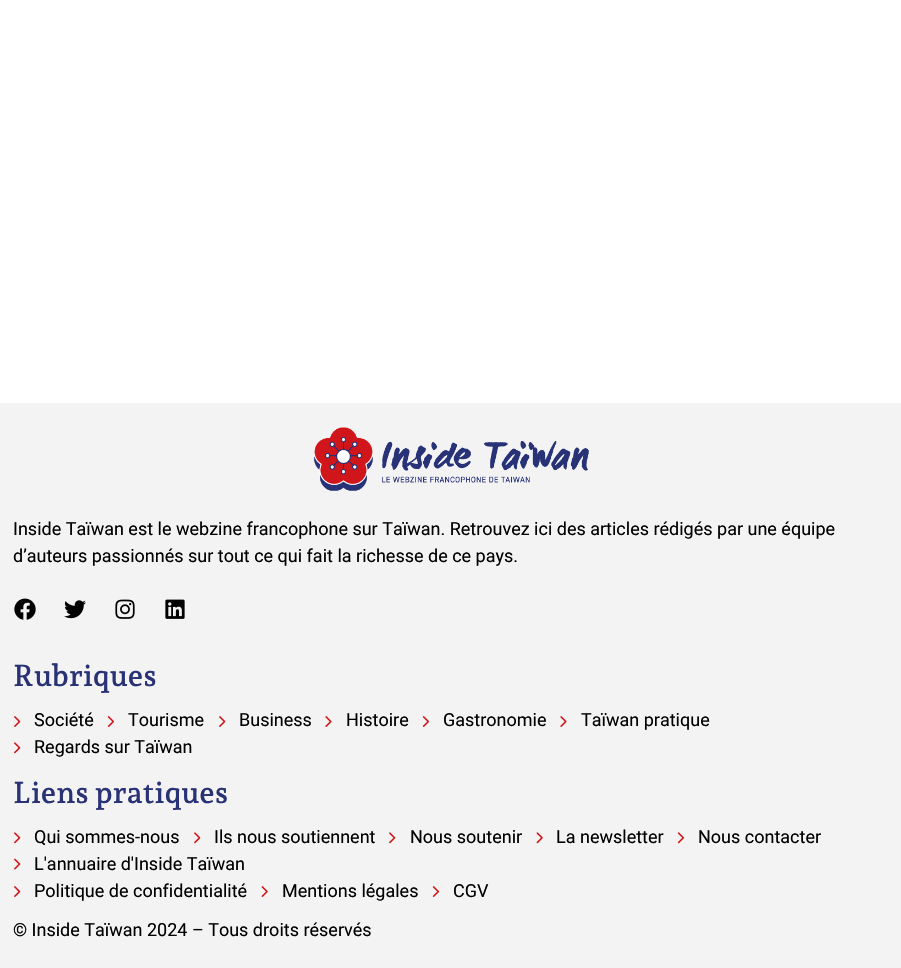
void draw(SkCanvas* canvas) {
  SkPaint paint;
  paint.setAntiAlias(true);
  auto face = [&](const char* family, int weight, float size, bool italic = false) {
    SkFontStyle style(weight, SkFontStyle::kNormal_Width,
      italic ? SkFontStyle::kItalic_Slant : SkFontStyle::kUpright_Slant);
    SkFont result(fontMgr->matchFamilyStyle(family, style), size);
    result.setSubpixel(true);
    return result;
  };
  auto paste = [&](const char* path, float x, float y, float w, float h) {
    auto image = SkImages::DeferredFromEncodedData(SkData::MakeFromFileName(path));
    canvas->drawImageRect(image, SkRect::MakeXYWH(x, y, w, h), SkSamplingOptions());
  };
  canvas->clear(0xffffffff);
  paint.setColor(0xfff3f3f3);
  canvas->drawRect(SkRect::MakeXYWH(0, 403, 901, 565), paint);
  paste("img/1.png", 313, 427, 276, 64);
  paste("img/2.png", 14, 598, 22, 22);
  paste("img/3.png", 64, 600, 22, 19);
  paste("img/4.png", 115, 599, 20, 20);
  paste("img/5.png", 165, 599, 20, 20);
  paste("img/6.png", 14, 716, 7, 11);
  paste("img/7.png", 107, 716, 7, 11);
  paste("img/6.png", 219, 716, 7, 11);
  paste("img/8.png", 325, 716, 7, 11);
  paste("img/7.png", 422, 716, 7, 11);
  paste("img/8.png", 560, 716, 7, 11);
  paste("img/9.png", 14, 742, 7, 12);
  paste("img/9.png", 14, 832, 7, 12);
  paste("img/9.png", 194, 832, 7, 12);
  paste("img/9.png", 389, 832, 7, 12);
  paste("img/10.png", 536, 832, 7, 12);
  paste("img/11.png", 677, 832, 7, 12);
  paste("img/12.png", 14, 858, 7, 12);
  paste("img/6.png", 14, 886, 7, 11);
  paste("img/13.png", 261, 886, 7, 11);
  paste("img/7.png", 432, 886, 7, 11);
  auto f0 = face("Roboto", 400, 18);
  paint.setColor(0xff000000);
  canvas->drawString("Inside Taïwan est le webzine francophone sur Taïwan. Retrouvez ici des articles rédigés par une équipe", 13, 535, f0, paint);
  canvas->drawString("d’auteurs passionnés sur tout ce qui fait la richesse de ce pays.", 13, 562, f0, paint);
  auto f1 = face("Andada Pro", 600, 30);
  paint.setColor(0xff293275);
  canvas->drawString("Rubriques", 13, 686, f1, paint);
  paint.setColor(0xff000000);
  {
    const struct { const char* s; float x, y; } items[] = {
      {"Société", 34, 726},
      {"Tourisme", 128, 726},
      {"Business", 239, 726},
      {"Histoire", 346, 726},
      {"Gastronomie", 443, 726},
      {"Taïwan pratique", 581, 726},
      {"Regards sur Taïwan", 34, 753},
    };
    for (auto [s, x, y] : items) {
      canvas->drawString(s, x, y, f0, paint);
    }
  }
  paint.setColor(0xff293275);
  canvas->drawString("Liens pratiques", 13, 803, f1, paint);
  paint.setColor(0xff000000);
  {
    const struct { const char* s; float x, y; } items[] = {
      {"Qui sommes-nous", 34, 843},
      {"Ils nous soutiennent", 214, 843},
      {"Nous soutenir", 410, 843},
      {"La newsletter", 556, 843},
      {"Nous contacter", 698, 843},
      {"L'annuaire d'Inside Taïwan", 34, 870},
      {"Politique de confidentialité", 34, 897},
      {"Mentions légales", 282, 897},
      {"CGV", 453, 897},
      {"© Inside Taïwan 2024 – Tous droits réservés", 13, 936},
    };
    for (auto [s, x, y] : items) {
      canvas->drawString(s, x, y, f0, paint);
    }
  }
}
